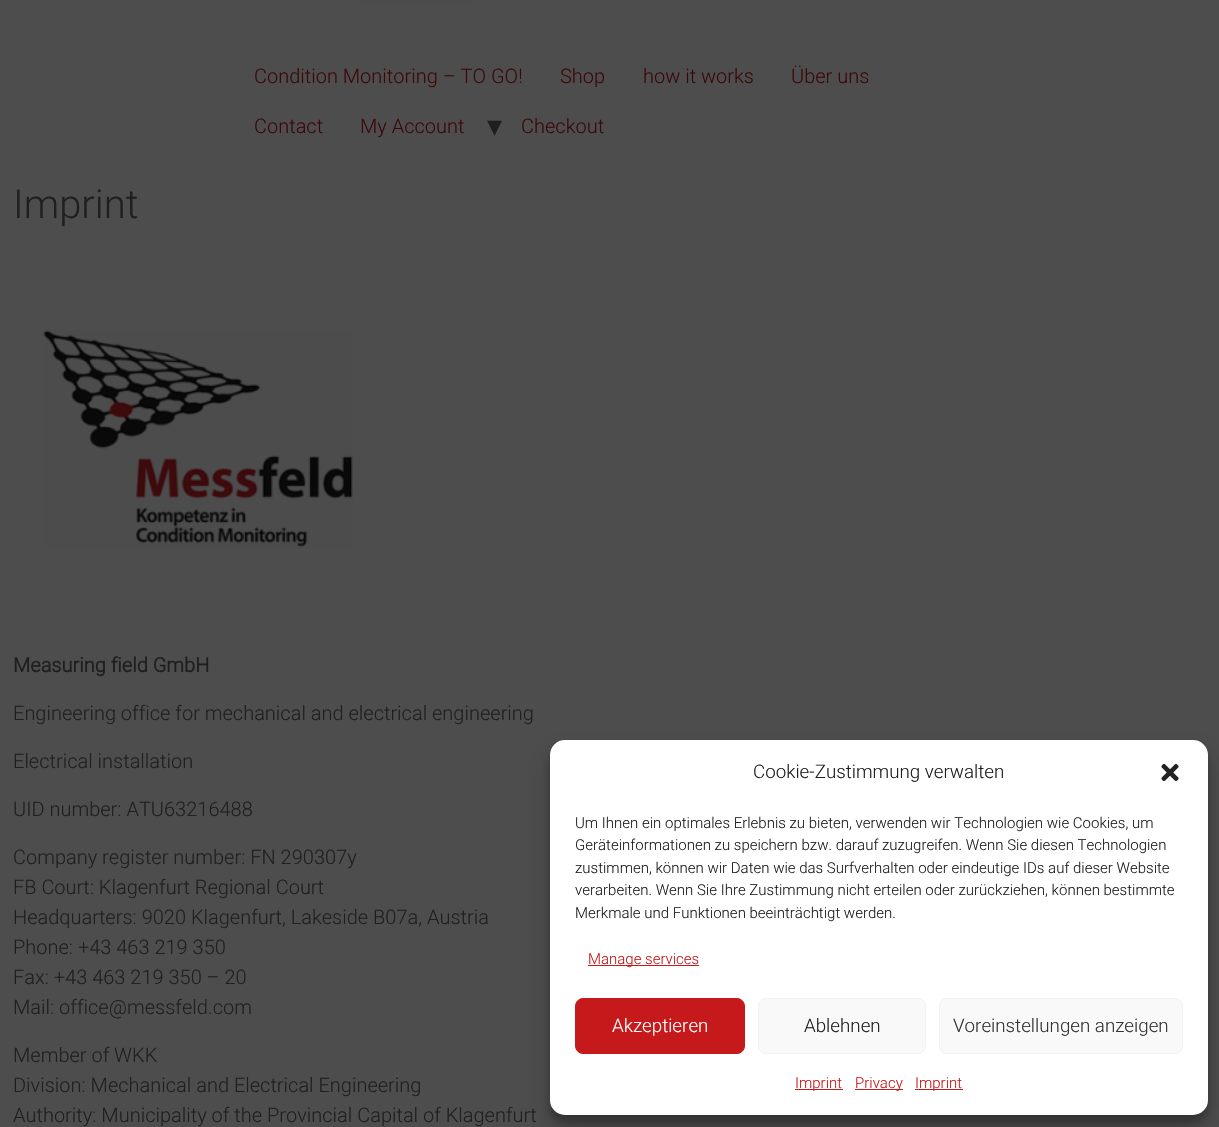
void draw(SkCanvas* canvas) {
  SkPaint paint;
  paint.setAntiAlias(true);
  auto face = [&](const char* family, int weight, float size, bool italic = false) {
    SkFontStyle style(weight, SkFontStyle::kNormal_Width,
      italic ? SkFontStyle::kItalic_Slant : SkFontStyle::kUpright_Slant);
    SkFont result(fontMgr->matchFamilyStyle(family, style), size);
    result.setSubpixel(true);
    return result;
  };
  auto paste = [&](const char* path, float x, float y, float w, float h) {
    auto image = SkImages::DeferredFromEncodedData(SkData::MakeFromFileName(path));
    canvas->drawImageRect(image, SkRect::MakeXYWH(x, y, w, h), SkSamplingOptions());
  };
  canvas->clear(0xff4d4d4d);
  paste("img/1.png", 358, 0, 114, 3);
  paste("img/2.png", 43, 330, 310, 218);
  paint.setColor(0x3b000000);
  paint.setMaskFilter(SkMaskFilter::MakeBlur(kNormal_SkBlurStyle, 4));
  canvas->drawRoundRect(SkRect::MakeXYWH(550, 748, 658, 375), 15, 15, paint);
  paint.setMaskFilter(nullptr);
  paint.setColor(0x30000000);
  paint.setMaskFilter(SkMaskFilter::MakeBlur(kNormal_SkBlurStyle, 12.5f));
  canvas->drawRoundRect(SkRect::MakeXYWH(550, 753, 658, 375), 15, 15, paint);
  paint.setMaskFilter(nullptr);
  paint.setColor(0xffffffff);
  canvas->drawRoundRect(SkRect::MakeXYWH(550, 740, 658, 375), 15, 15, paint);
  paste("img/3.png", 1161, 763, 18, 18);
  paint.setColor(0xffc6191b);
  canvas->drawRect(SkRect::MakeXYWH(588, 965, 111, 1), paint);
  canvas->drawRoundRect(SkRect::MakeXYWH(575.5f, 998.5f, 169, 55), 7.5f, 7.5f, paint);
  paint.setStroke(true);
  paint.setStrokeWidth(1);
  canvas->drawRoundRect(SkRect::MakeXYWH(575.5f, 998.5f, 169, 55), 7.5f, 7.5f, paint);
  paint.setStroke(false);
  paint.setColor(0xfff9f9f9);
  canvas->drawRoundRect(SkRect::MakeXYWH(758.5f, 998.5f, 167, 55), 7.5f, 7.5f, paint);
  paint.setStroke(true);
  paint.setColor(0xfff2f2f2);
  canvas->drawRoundRect(SkRect::MakeXYWH(758.5f, 998.5f, 167, 55), 7.5f, 7.5f, paint);
  paint.setStroke(false);
  paint.setColor(0xfff9f9f9);
  canvas->drawRoundRect(SkRect::MakeXYWH(939.5f, 998.5f, 243, 55), 7.5f, 7.5f, paint);
  paint.setStroke(true);
  paint.setColor(0xfff2f2f2);
  canvas->drawRoundRect(SkRect::MakeXYWH(939.5f, 998.5f, 243, 55), 7.5f, 7.5f, paint);
  paint.setStroke(false);
  {
    const struct { float x, y, w, h; SkColor color; } items[] = {
      {795, 1089, 48, 1, 0xffc6191b},
      {855, 1089, 48, 1, 0xffc6191b},
      {915, 1089, 48, 1, 0xffc6191b},
    };
    for (auto [x, y, w, h, color] : items) {
      paint.setColor(color);
      canvas->drawRect(SkRect::MakeXYWH(x, y, w, h), paint);
    }
  }
  auto f0 = face("Roboto", 300, 20);
  paint.setColor(0xff3b0808);
  {
    const struct { const char* s; float x, y; } items[] = {
      {"Condition Monitoring – TO GO!", 254, 83},
      {"Shop", 560, 83},
      {"how it works", 643, 83},
      {"Über uns", 791, 83},
      {"Contact", 254, 133},
      {"My Account", 360, 133},
    };
    for (auto [s, x, y] : items) {
      canvas->drawString(s, x, y, f0, paint);
    }
  }
  auto f1 = face("DejaVu Sans", 400, 30);
  paint.setColor(0xff1f1f1f);
  canvas->drawString("▾", 487, 136, f1, paint);
  paint.setColor(0xff3b0808);
  canvas->drawString("Checkout", 521, 133, f0, paint);
  auto f2 = face("Roboto", 300, 40);
  paint.setColor(0xff1f1f1f);
  canvas->drawString("Imprint", 13, 218, f2, paint);
  auto f3 = face("Roboto", 700, 20);
  canvas->drawString("Measuring field GmbH", 13, 672, f3, paint);
  {
    const struct { const char* s; float x, y; } items[] = {
      {"Engineering office for mechanical and electrical engineering", 13, 720},
      {"Electrical installation", 13, 768},
      {"UID number: ATU63216488", 13, 816},
      {"Company register number: FN 290307y", 13, 864},
      {"FB Court: Klagenfurt Regional Court", 13, 894},
      {"Headquarters: 9020 Klagenfurt, Lakeside B07a, Austria", 13, 924},
      {"Phone: +43 463 219 350", 13, 954},
      {"Fax: +43 463 219 350 – 20", 13, 984},
      {"Mail: office@messfeld.com", 13, 1014},
      {"Member of WKK", 13, 1062},
      {"Division: Mechanical and Electrical Engineering", 13, 1092},
      {"Authority: Municipality of the Provincial Capital of Klagenfurt", 13, 1122},
    };
    for (auto [s, x, y] : items) {
      canvas->drawString(s, x, y, f0, paint);
    }
  }
  auto f4 = face("Roboto", 300, 18.75f);
  canvas->drawString("Cookie-Zustimmung verwalten", 753, 778, f4, paint);
  auto f5 = face("Roboto", 300, 15);
  {
    const struct { const char* s; float x, y; } items[] = {
      {"Um Ihnen ein optimales Erlebnis zu bieten, verwenden wir Technologien wie Cookies, um", 575, 828},
      {"Geräteinformationen zu speichern bzw. darauf zuzugreifen. Wenn Sie diesen Technologien", 575, 850},
      {"zustimmen, können wir Daten wie das Surfverhalten oder eindeutige IDs auf dieser Website", 575, 873},
      {"verarbeiten. Wenn Sie Ihre Zustimmung nicht erteilen oder zurückziehen, können bestimmte", 575, 895},
      {"Merkmale und Funktionen beeinträchtigt werden.", 575, 918},
    };
    for (auto [s, x, y] : items) {
      canvas->drawString(s, x, y, f5, paint);
    }
  }
  paint.setColor(0xffc6191b);
  canvas->drawString("Manage services", 588, 964, f5, paint);
  paint.setColor(0xffffffff);
  canvas->drawString("Akzeptieren", 612, 1032, f4, paint);
  paint.setColor(0xff1f1f1f);
  canvas->drawString("Ablehnen", 804, 1032, f4, paint);
  paint.setColor(0xff333333);
  canvas->drawString("Voreinstellungen anzeigen", 953, 1032, f4, paint);
  paint.setColor(0xffc6191b);
  {
    const struct { const char* s; float x, y; } items[] = {
      {"Imprint", 795, 1088},
      {"Privacy", 855, 1088},
      {"Imprint", 915, 1088},
    };
    for (auto [s, x, y] : items) {
      canvas->drawString(s, x, y, f5, paint);
    }
  }
}
